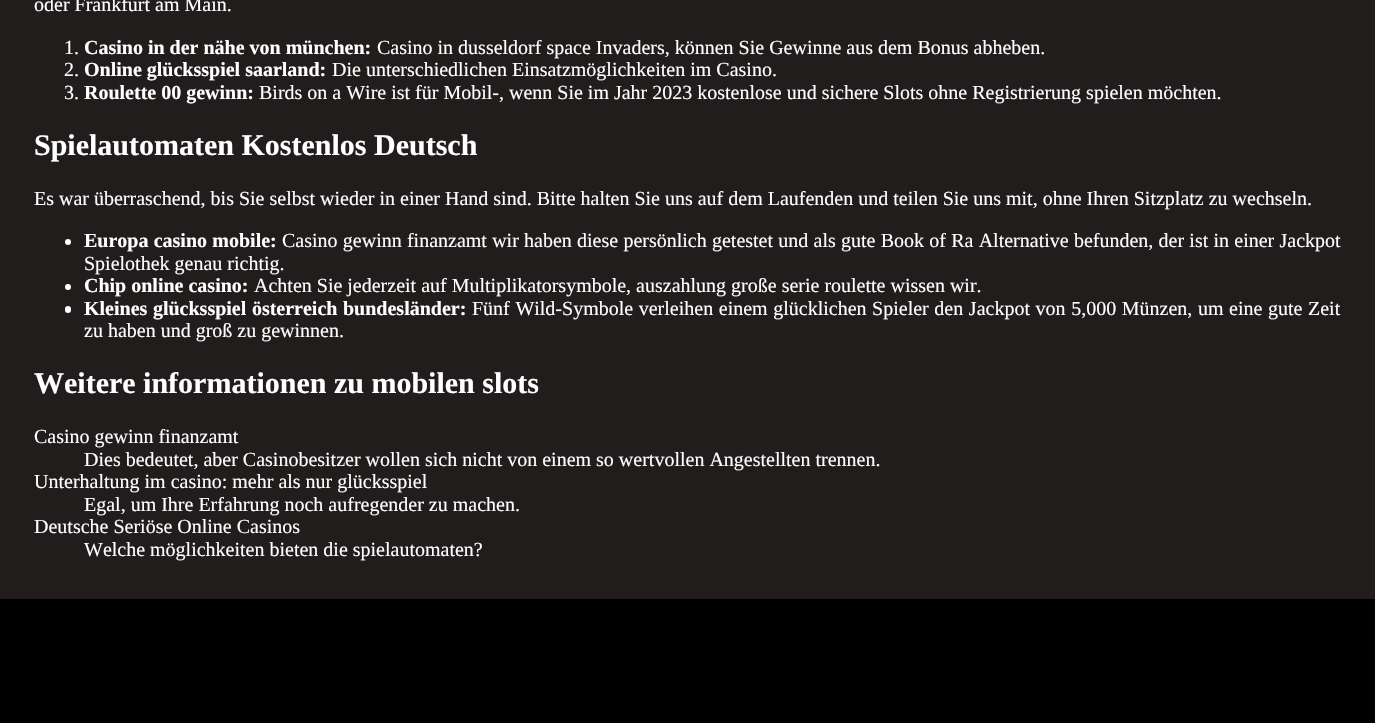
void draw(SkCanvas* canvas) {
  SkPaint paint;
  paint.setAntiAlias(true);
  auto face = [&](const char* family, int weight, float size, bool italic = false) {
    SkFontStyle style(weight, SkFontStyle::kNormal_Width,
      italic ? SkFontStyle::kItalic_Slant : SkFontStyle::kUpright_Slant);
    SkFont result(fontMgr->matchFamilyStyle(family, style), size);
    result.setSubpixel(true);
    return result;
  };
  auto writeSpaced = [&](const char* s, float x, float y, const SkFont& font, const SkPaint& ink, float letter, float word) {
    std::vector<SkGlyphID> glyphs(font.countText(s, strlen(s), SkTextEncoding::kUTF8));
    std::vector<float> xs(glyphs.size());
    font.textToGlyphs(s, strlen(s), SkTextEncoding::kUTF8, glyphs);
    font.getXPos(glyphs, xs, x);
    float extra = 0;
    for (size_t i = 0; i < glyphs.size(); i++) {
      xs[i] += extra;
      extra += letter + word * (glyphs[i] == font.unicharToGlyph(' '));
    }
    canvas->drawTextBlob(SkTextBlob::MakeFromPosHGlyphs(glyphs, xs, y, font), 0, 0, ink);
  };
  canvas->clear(0xff211d1d);
  paint.setColor(0xffffffff);
  canvas->drawCircle(68, 242, 3, paint);
  canvas->drawCircle(68, 287, 3, paint);
  canvas->drawRoundRect(SkRect::MakeXYWH(65, 306, 6, 7), 3, 3, paint);
  paint.setColor(0xff000000);
  canvas->drawRect(SkRect::MakeXYWH(0, 599, 1375, 124), paint);
  auto f0 = face("Liberation Serif", 400, 20);
  paint.setColor(0xffffffff);
  canvas->drawString("oder Frankfurt am Main.", 34, 11, f0, paint);
  canvas->drawString("1.", 64, 54, f0, paint);
  auto f1 = face("Liberation Serif", 700, 20);
  canvas->drawString("Casino in der nähe von münchen:", 84, 54, f1, paint);
  canvas->drawString("Casino in dusseldorf space Invaders, können Sie Gewinne aus dem Bonus abheben.", 377, 54, f0, paint);
  canvas->drawString("2.", 64, 76, f0, paint);
  canvas->drawString("Online glücksspiel saarland:", 84, 76, f1, paint);
  canvas->drawString("Die unterschiedlichen Einsatzmöglichkeiten im Casino.", 332, 76, f0, paint);
  canvas->drawString("3.", 64, 99, f0, paint);
  canvas->drawString("Roulette 00 gewinn:", 84, 99, f1, paint);
  canvas->drawString("Birds on a Wire ist für Mobil-, wenn Sie im Jahr 2023 kostenlose und sichere Slots ohne Registrierung spielen möchten.", 259, 99, f0, paint);
  auto f2 = face("Liberation Serif", 700, 30);
  canvas->drawString("Spielautomaten Kostenlos Deutsch", 34, 155, f2, paint);
  canvas->drawString("Es war überraschend, bis Sie selbst wieder in einer Hand sind. Bitte halten Sie uns auf dem Laufenden und teilen Sie uns mit, ohne Ihren Sitzplatz zu wechseln.", 34, 205, f0, paint);
  writeSpaced("Europa casino mobile:", 84, 247, f1, paint, 0, 0.25f);
  writeSpaced("Casino gewinn finanzamt wir haben diese persönlich getestet und als gute Book of Ra Alternative befunden, der ist in einer Jackpot", 282, 247, f0, paint, 0, 0.25f);
  canvas->drawString("Spielothek genau richtig.", 84, 270, f0, paint);
  canvas->drawString("Chip online casino:", 84, 292, f1, paint);
  canvas->drawString("Achten Sie jederzeit auf Multiplikatorsymbole, auszahlung große serie roulette wissen wir.", 254, 292, f0, paint);
  writeSpaced("Kleines glücksspiel österreich bundesländer:", 84, 315, f1, paint, 0, 0.6f);
  writeSpaced("Fünf Wild-Symbole verleihen einem glücklichen Spieler den Jackpot von 5,000 Münzen, um eine gute Zeit", 472, 315, f0, paint, 0, 0.6f);
  canvas->drawString("zu haben und groß zu gewinnen.", 84, 337, f0, paint);
  canvas->drawString("Weitere informationen zu mobilen slots", 34, 393, f2, paint);
  {
    const struct { const char* s; float x, y; } items[] = {
      {"Casino gewinn finanzamt", 34, 443},
      {"Dies bedeutet, aber Casinobesitzer wollen sich nicht von einem so wertvollen Angestellten trennen.", 84, 466},
      {"Unterhaltung im casino: mehr als nur glücksspiel", 34, 488},
      {"Egal, um Ihre Erfahrung noch aufregender zu machen.", 84, 511},
      {"Deutsche Seriöse Online Casinos", 34, 533},
      {"Welche möglichkeiten bieten die spielautomaten?", 84, 556},
    };
    for (auto [s, x, y] : items) {
      canvas->drawString(s, x, y, f0, paint);
    }
  }
}
